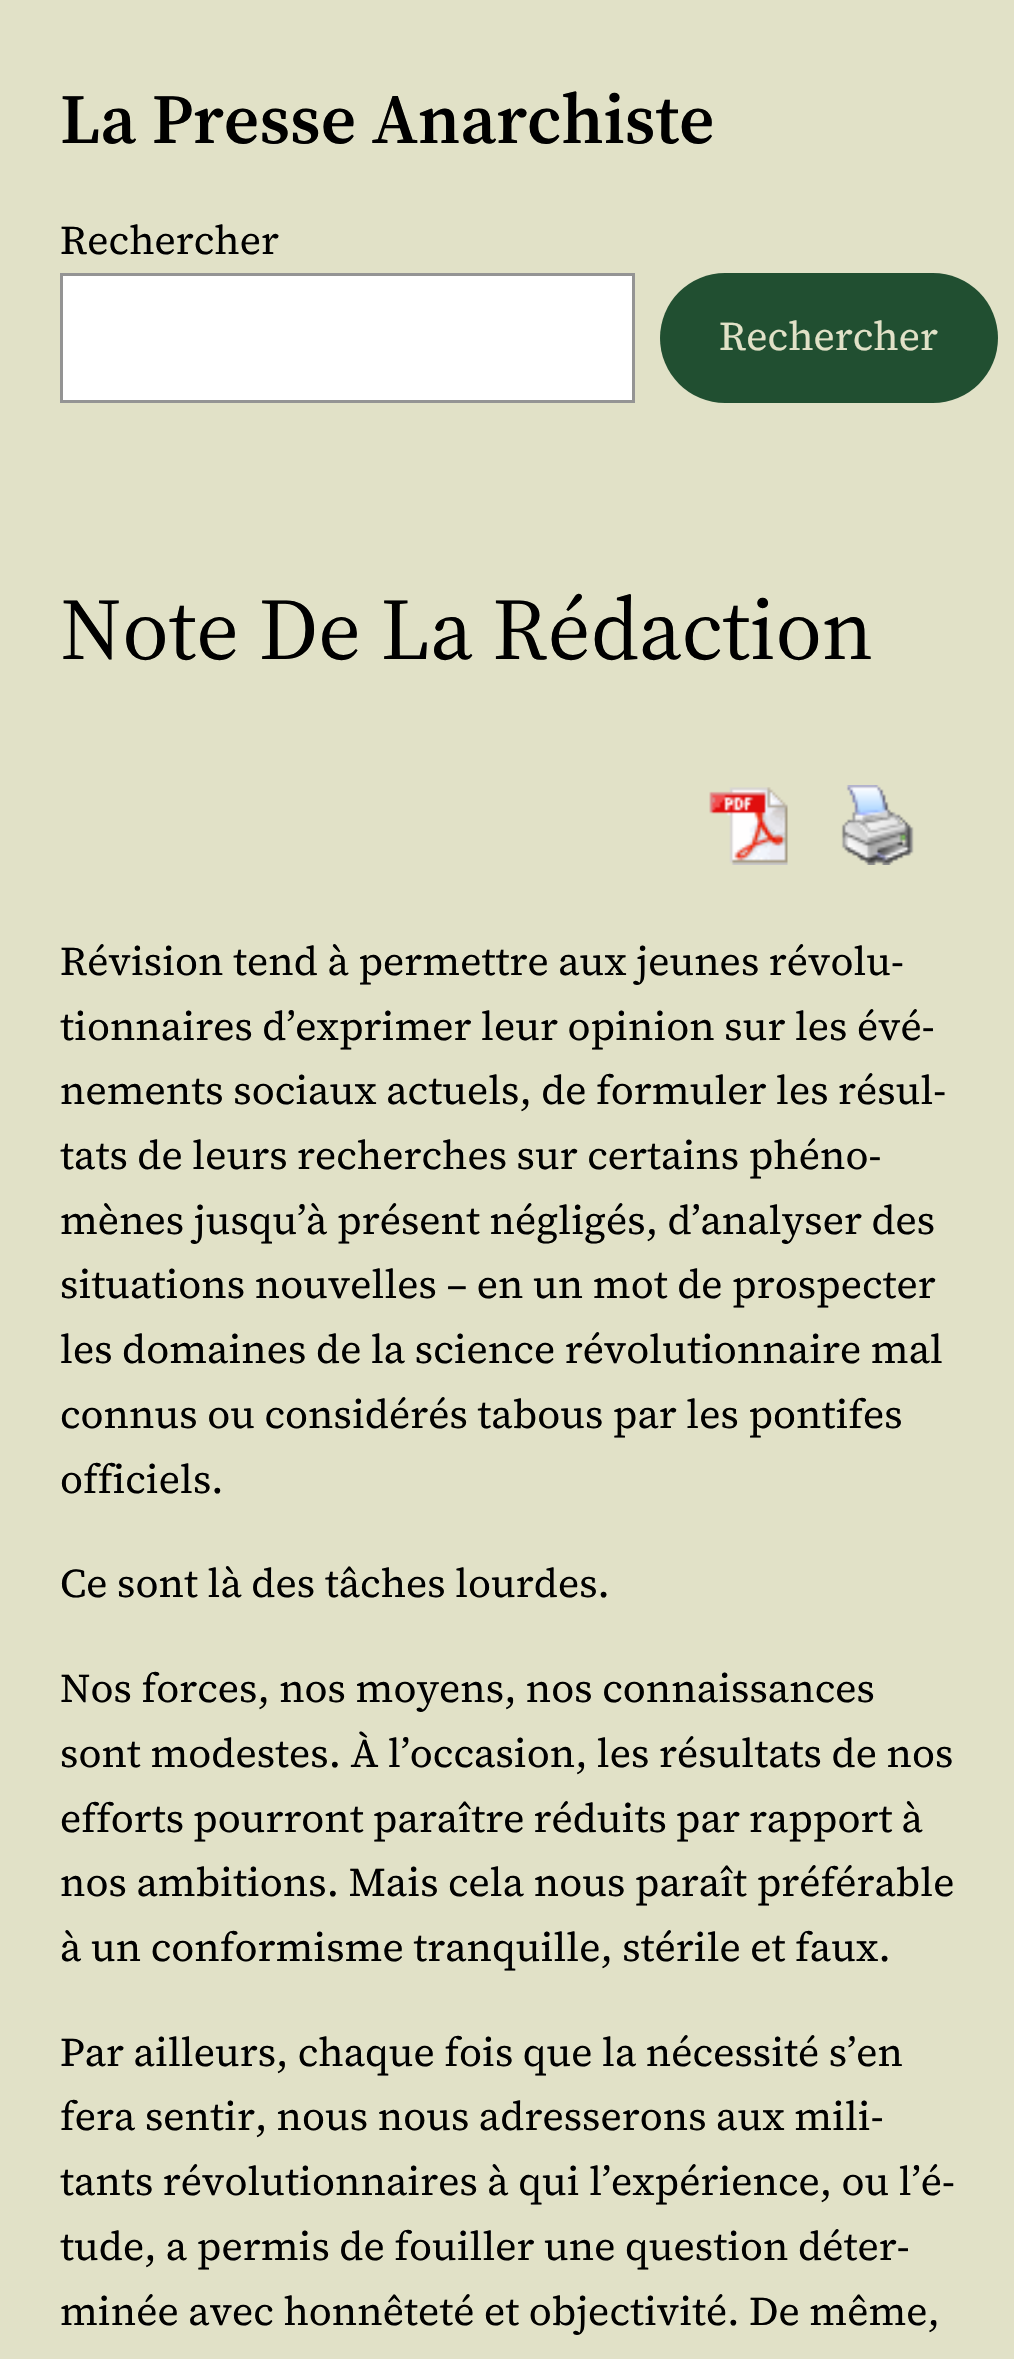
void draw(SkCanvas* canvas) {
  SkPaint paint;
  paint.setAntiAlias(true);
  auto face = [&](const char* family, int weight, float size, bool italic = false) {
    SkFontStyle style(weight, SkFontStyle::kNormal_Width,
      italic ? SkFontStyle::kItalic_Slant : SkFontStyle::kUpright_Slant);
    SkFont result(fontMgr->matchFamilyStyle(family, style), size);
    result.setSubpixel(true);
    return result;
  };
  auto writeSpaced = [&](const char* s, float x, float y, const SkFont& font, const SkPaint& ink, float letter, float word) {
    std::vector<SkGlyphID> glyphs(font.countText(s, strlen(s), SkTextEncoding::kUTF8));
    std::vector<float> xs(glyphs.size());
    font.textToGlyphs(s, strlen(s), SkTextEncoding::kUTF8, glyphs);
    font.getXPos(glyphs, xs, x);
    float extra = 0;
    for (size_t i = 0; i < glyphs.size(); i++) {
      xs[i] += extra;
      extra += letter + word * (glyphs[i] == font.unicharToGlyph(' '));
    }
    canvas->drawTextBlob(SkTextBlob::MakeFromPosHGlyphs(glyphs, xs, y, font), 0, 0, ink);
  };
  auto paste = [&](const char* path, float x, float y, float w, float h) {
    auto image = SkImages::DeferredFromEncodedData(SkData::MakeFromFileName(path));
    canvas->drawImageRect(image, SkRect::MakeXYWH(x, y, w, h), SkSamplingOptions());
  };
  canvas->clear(0xffe1e1c7);
  paint.setColor(0xffffffff);
  canvas->drawRect(SkRect::MakeXYWH(61.5f, 274.5f, 572, 127), paint);
  paint.setStroke(true);
  paint.setStrokeWidth(3);
  paint.setColor(0xff949494);
  canvas->drawRect(SkRect::MakeXYWH(61.5f, 274.5f, 572, 127), paint);
  paint.setStroke(false);
  paint.setColor(0xff214f31);
  canvas->drawRoundRect(SkRect::MakeXYWH(660, 273, 338, 130), 65, 65, paint);
  paste("img/1.png", 709, 787, 79, 78);
  paste("img/2.png", 841, 785, 73, 80);
  auto f0 = face("Source Serif 4", 600, 70.5f);
  paint.setColor(0xff000000);
  canvas->drawString("La Presse Anarchiste", 60, 143, f0, paint);
  auto f1 = face("Source Serif 4", 400, 40.5f);
  canvas->drawString("Rechercher", 60, 254, f1, paint);
  paint.setColor(0xffe1e1c7);
  canvas->drawString("Rechercher", 719, 350, f1, paint);
  auto f2 = face("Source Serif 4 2", 400, 87.5f);
  paint.setColor(0xff000000);
  canvas->drawString("Note De La Rédaction", 60, 659, f2, paint);
  {
    const struct { const char* s; float x, y; } items[] = {
      {"Révision tend à permettre aux jeunes révolu-", 60, 975},
      {"tionnaires d’exprimer leur opinion sur les évé-", 60, 1040},
      {"nements sociaux actuels, de formuler les résul-", 60, 1104},
      {"tats de leurs recherches sur certains phéno-", 60, 1169},
      {"mènes jusqu’à présent négligés, d’analyser des", 60, 1234},
      {"situations nouvelles – en un mot de prospecter", 60, 1298},
      {"les domaines de la science révolutionnaire mal", 60, 1363},
      {"connus ou considérés tabous par les pontifes", 60, 1428},
      {"officiels.", 60, 1493},
      {"Ce sont là des tâches lourdes.", 60, 1597},
      {"Nos forces, nos moyens, nos connaissances", 60, 1702},
      {"sont modestes. À l’occasion, les résultats de nos", 60, 1767},
    };
    for (auto [s, x, y] : items) {
      canvas->drawString(s, x, y, f1, paint);
    }
  }
  writeSpaced("efforts pourront paraître réduits par rapport à", 60, 1832, f1, paint, 0, -0.5f);
  {
    const struct { const char* s; float x, y; } items[] = {
      {"nos ambitions. Mais cela nous paraît préférable", 60, 1896},
      {"à un conformisme tranquille, stérile et faux.", 60, 1961},
      {"Par ailleurs, chaque fois que la nécessité s’en", 60, 2066},
      {"fera sentir, nous nous adresserons aux mili-", 60, 2130},
      {"tants révolutionnaires à qui l’expérience, ou l’é-", 60, 2195},
      {"tude, a permis de fouiller une question déter-", 60, 2260},
      {"minée avec honnêteté et objectivité. De même,", 60, 2325},
    };
    for (auto [s, x, y] : items) {
      canvas->drawString(s, x, y, f1, paint);
    }
  }
}
